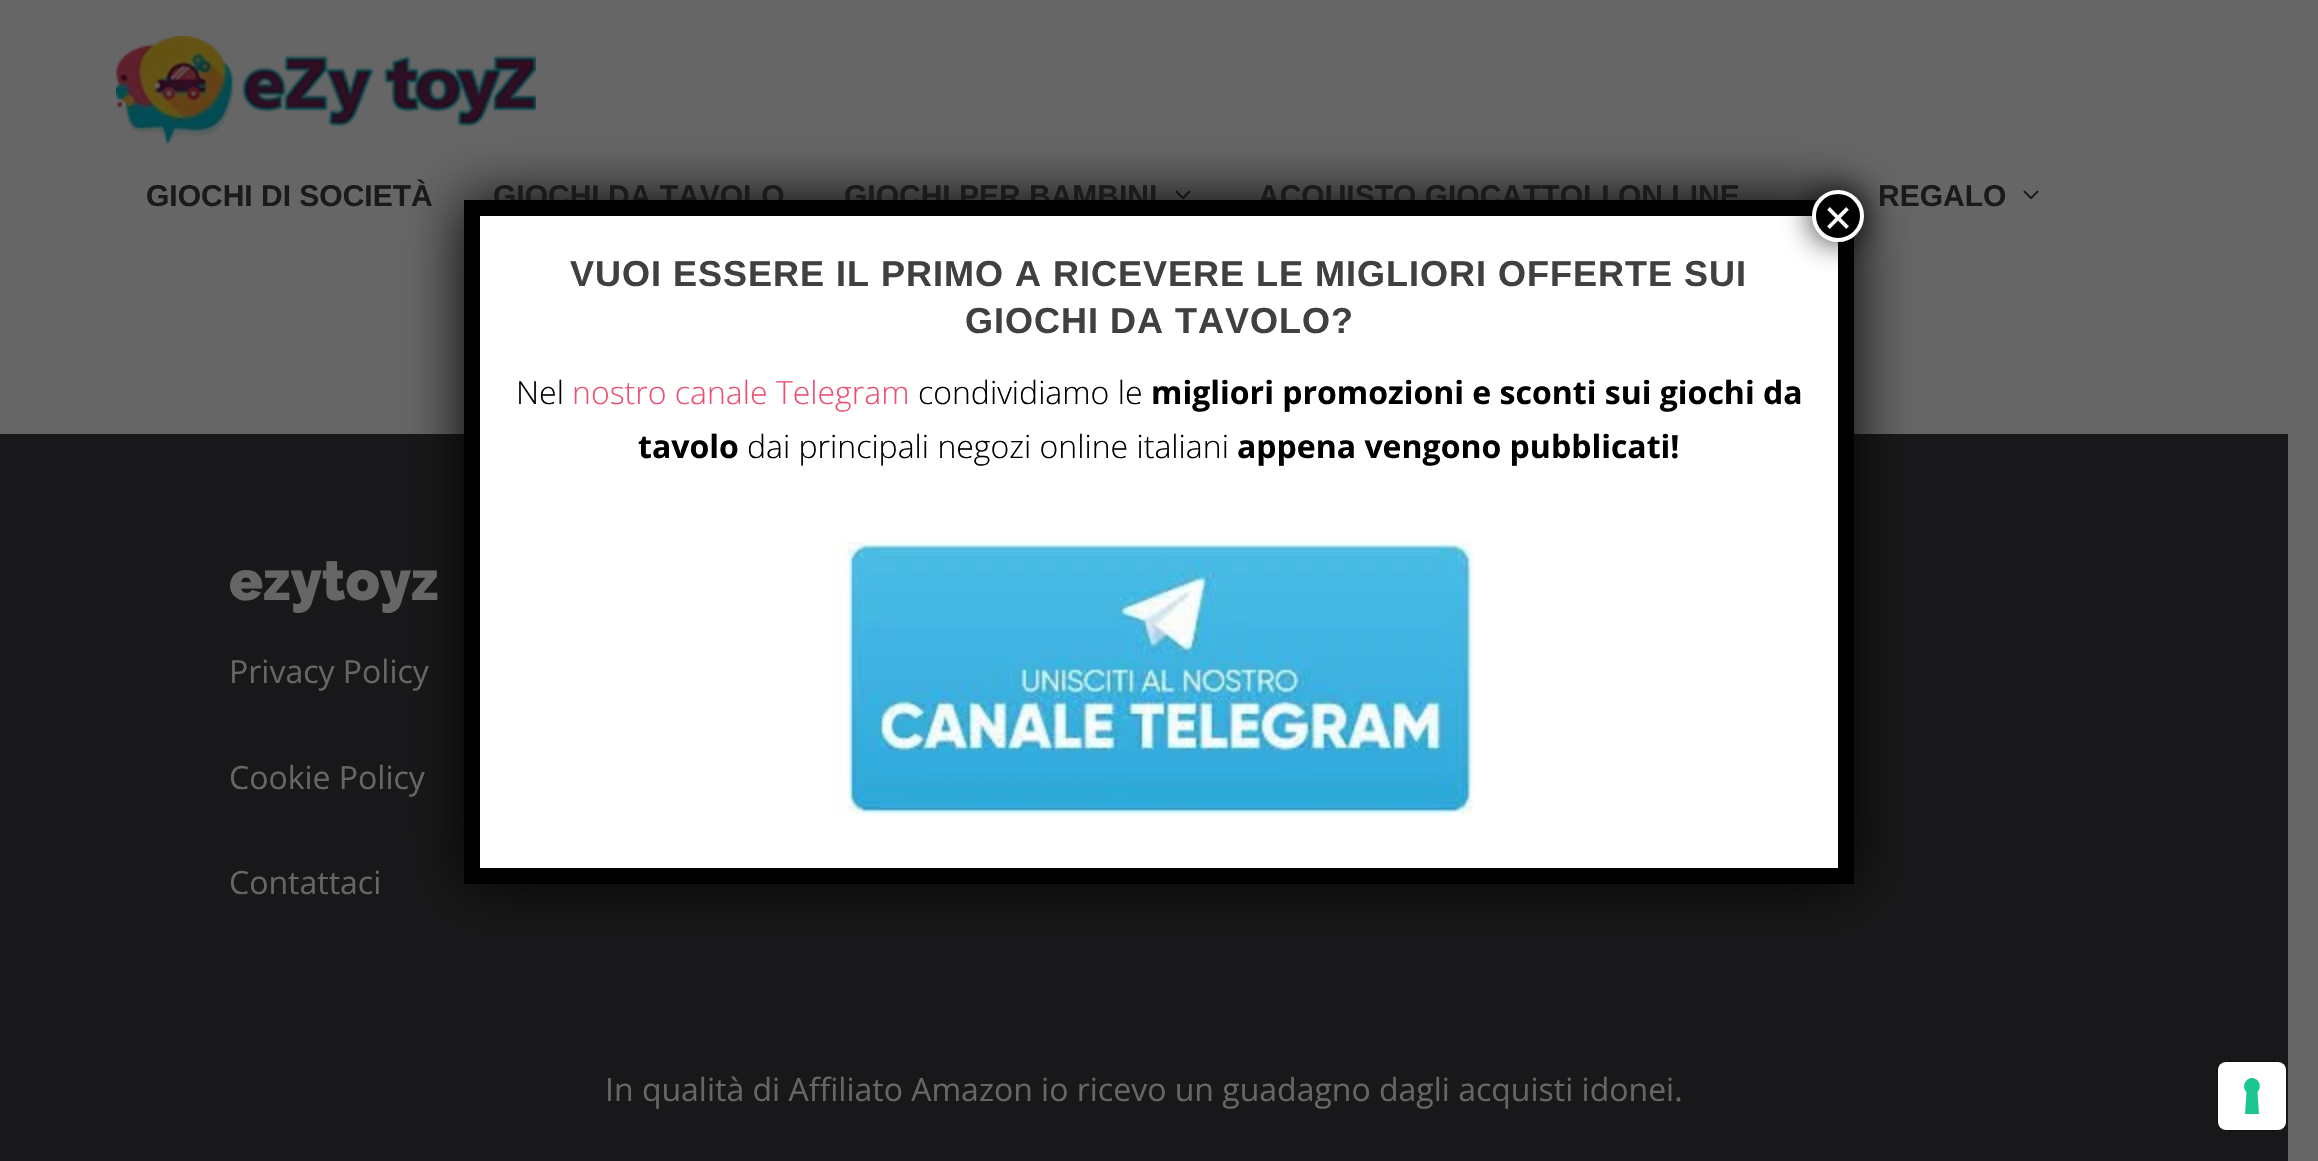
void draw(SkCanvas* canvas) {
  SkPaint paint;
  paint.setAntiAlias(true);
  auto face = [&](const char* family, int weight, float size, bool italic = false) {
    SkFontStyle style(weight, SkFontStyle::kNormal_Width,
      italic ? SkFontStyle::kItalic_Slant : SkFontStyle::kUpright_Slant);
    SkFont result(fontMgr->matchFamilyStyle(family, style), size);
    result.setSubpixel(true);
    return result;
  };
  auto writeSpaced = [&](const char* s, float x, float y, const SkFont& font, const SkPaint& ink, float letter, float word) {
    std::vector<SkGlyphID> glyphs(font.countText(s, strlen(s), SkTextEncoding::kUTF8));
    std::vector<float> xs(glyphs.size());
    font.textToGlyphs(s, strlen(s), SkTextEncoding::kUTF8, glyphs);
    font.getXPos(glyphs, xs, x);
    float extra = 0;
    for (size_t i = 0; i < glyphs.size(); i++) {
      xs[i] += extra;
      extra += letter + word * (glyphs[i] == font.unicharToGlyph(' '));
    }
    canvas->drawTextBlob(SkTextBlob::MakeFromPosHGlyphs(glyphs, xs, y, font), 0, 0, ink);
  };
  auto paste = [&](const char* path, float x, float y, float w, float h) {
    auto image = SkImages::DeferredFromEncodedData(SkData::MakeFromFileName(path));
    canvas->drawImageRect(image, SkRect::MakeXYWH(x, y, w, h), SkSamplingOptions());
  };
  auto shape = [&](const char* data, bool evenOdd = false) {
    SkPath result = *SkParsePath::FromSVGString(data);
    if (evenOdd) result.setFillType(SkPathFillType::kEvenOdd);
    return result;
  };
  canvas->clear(0xff666666);
  paste("img/1.png", 116, 36, 420, 108);
  paste("img/2.png", 1175, 190, 16, 10);
  paste("img/2.png", 2023, 190, 16, 10);
  paint.setColor(0xff18181a);
  canvas->drawRect(SkRect::MakeXYWH(0, 434, 2288, 727), paint);
  paint.setColor(0xff020202);
  paint.setMaskFilter(SkMaskFilter::MakeBlur(kNormal_SkBlurStyle, 30));
  canvas->drawRoundRect(SkRect::MakeXYWH(464, 200, 1390, 684), 6, 6, paint);
  paint.setMaskFilter(nullptr);
  paint.setColor(0xffffffff);
  canvas->drawRect(SkRect::MakeXYWH(480, 216, 1358, 652), paint);
  paint.setStroke(true);
  paint.setStrokeWidth(2);
  paint.setColor(0xff141516);
  canvas->drawRoundRect(SkRect::MakeXYWH(2217, 1061, 70, 70), 9, 9, paint);
  paint.setStroke(false);
  paint.setColor(0xffffffff);
  canvas->drawRoundRect(SkRect::MakeXYWH(2218, 1062, 68, 68), 8, 8, paint);
  paint.setColor(0xff1cc691);
  canvas->drawPath(shape("M2252 1078C2259 1078 2262.5 1087.5 2257.5 1092L2259 1114H2245L2246.5 1092C2241.5 1087.5 2245 1078 2252 1078Z", true), paint);
  auto f0 = face("Liberation Sans", 700, 30);
  paint.setColor(0xff1a1a1a);
  {
    const struct { const char* s; float x, y; } items[] = {
      {"GIOCHI DI SOCIETÀ", 146, 206},
      {"GIOCHI DA TAVOLO", 493, 206},
      {"GIOCHI PER BAMBINI", 844, 206},
      {"ACQUISTO GIOCATTOLI ON LINE", 1258, 206},
      {"REGALO", 1878, 206},
    };
    for (auto [s, x, y] : items) {
      canvas->drawString(s, x, y, f0, paint);
    }
  }
  auto f1 = face("Raleway", 900, 56);
  paint.setColor(0xff666666);
  canvas->drawString("ezytoyz", 229, 600, f1, paint);
  auto f2 = face("Open Sans", 400, 32);
  {
    const struct { const char* s; float x, y; } items[] = {
      {"Privacy Policy", 229, 683},
      {"Cookie Policy", 229, 789},
      {"Contattaci", 229, 894},
      {"In qualità di Affiliato Amazon io ricevo un guadagno dagli acquisti idonei.", 605, 1101},
    };
    for (auto [s, x, y] : items) {
      canvas->drawString(s, x, y, f2, paint);
    }
  }
  paint.setStroke(true);
  paint.setStrokeWidth(16);
  paint.setColor(0xff000000);
  canvas->drawPath(shape("M472 208H1846V876H472Z"), paint);
  paint.setStroke(false);
  paint.setColor(0xbf020202);
  paint.setMaskFilter(SkMaskFilter::MakeBlur(kNormal_SkBlurStyle, 15));
  canvas->drawRoundRect(SkRect::MakeXYWH(1810, 188, 56, 56), 28, 28, paint);
  paint.setMaskFilter(nullptr);
  paint.setColor(0xff000000);
  canvas->drawCircle(1838, 216, 24, paint);
  paint.setStroke(true);
  paint.setStrokeWidth(4);
  paint.setColor(0xffffffff);
  canvas->drawCircle(1838, 216, 24, paint);
  auto f3 = face("Liberation Sans", 400, 48);
  paint.setStroke(false);
  canvas->drawString("×", 1824, 234, f3, paint);
  auto f4 = face("Liberation Sans", 700, 36);
  paint.setColor(0xff404040);
  writeSpaced("VUOI ESSERE IL PRIMO A RICEVERE LE MIGLIORI OFFERTE SUI", 570, 286, f4, paint, 1, 0);
  writeSpaced("GIOCHI DA TAVOLO?", 965, 333, f4, paint, 1, 0);
  auto f5 = face("Open Sans", 300, 32);
  paint.setColor(0xff000000);
  canvas->drawString("Nel", 516, 404, f5, paint);
  paint.setColor(0xffed4f72);
  canvas->drawString("nostro canale Telegram", 572, 404, f5, paint);
  paint.setColor(0xff000000);
  canvas->drawString("condividiamo le", 918, 404, f5, paint);
  auto f6 = face("Open Sans", 700, 32);
  canvas->drawString("migliori promozioni e sconti sui giochi da", 1151, 404, f6, paint);
  canvas->drawString("tavolo", 638, 458, f6, paint);
  canvas->drawString("dai principali negozi online italiani", 747, 458, f5, paint);
  canvas->drawString("appena vengono pubblicati!", 1237, 458, f6, paint);
  paste("img/3.png", 832, 541, 642, 275);
}
